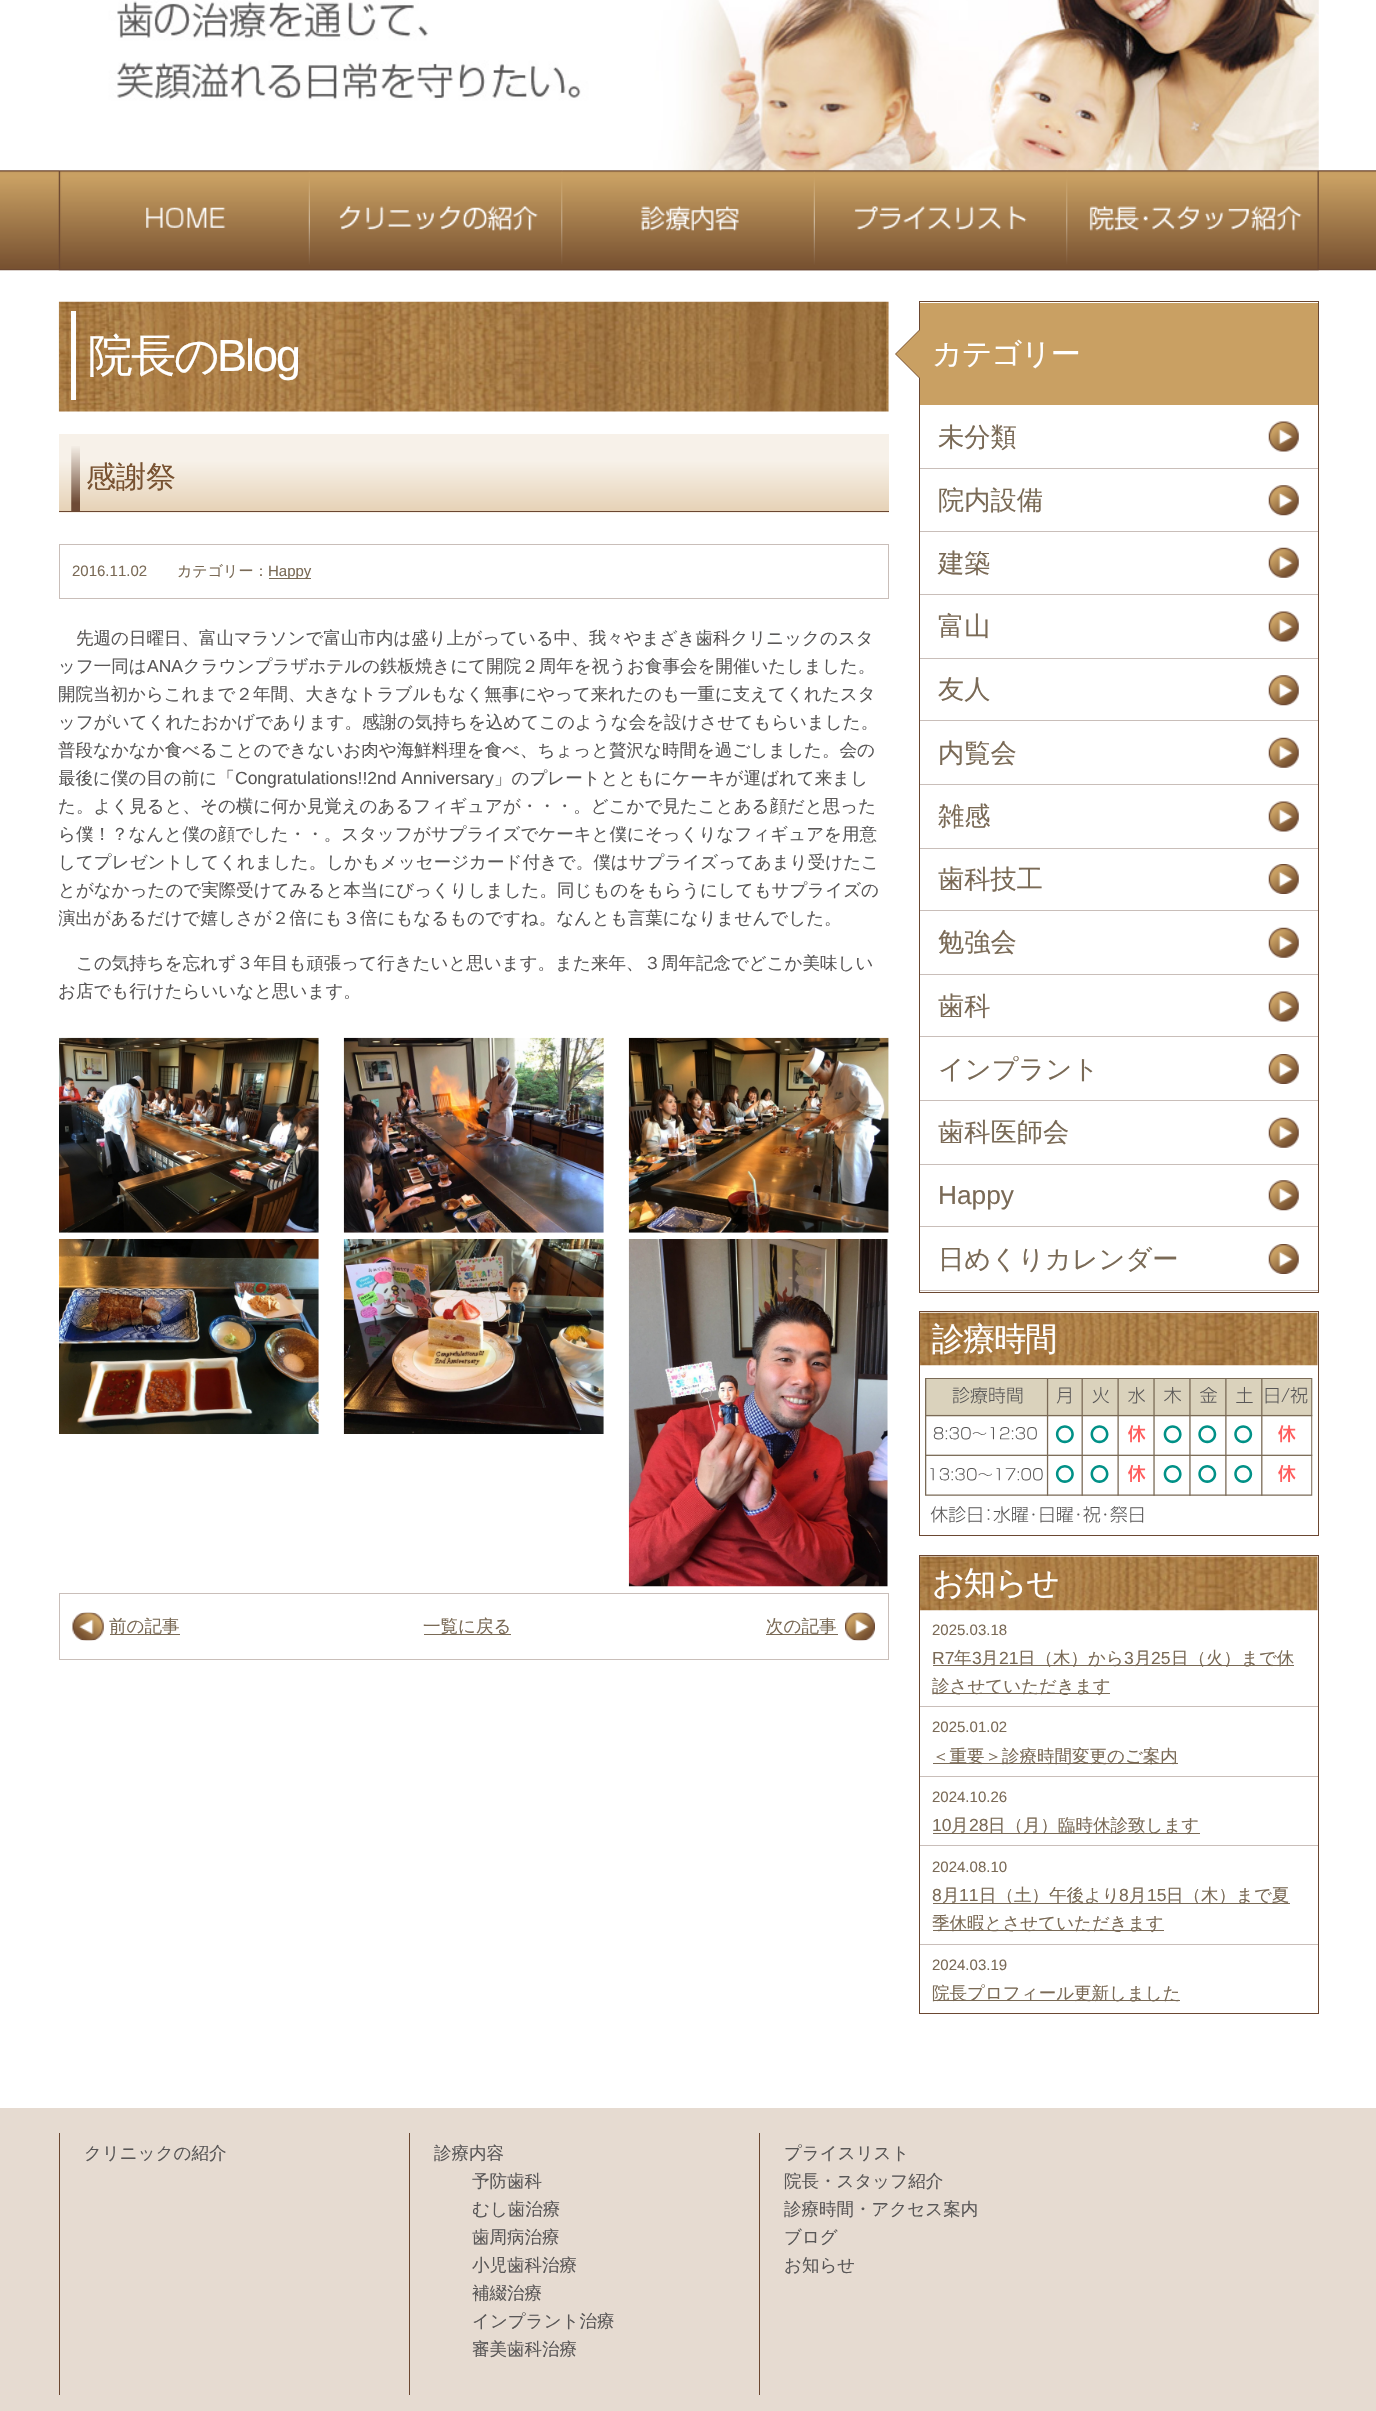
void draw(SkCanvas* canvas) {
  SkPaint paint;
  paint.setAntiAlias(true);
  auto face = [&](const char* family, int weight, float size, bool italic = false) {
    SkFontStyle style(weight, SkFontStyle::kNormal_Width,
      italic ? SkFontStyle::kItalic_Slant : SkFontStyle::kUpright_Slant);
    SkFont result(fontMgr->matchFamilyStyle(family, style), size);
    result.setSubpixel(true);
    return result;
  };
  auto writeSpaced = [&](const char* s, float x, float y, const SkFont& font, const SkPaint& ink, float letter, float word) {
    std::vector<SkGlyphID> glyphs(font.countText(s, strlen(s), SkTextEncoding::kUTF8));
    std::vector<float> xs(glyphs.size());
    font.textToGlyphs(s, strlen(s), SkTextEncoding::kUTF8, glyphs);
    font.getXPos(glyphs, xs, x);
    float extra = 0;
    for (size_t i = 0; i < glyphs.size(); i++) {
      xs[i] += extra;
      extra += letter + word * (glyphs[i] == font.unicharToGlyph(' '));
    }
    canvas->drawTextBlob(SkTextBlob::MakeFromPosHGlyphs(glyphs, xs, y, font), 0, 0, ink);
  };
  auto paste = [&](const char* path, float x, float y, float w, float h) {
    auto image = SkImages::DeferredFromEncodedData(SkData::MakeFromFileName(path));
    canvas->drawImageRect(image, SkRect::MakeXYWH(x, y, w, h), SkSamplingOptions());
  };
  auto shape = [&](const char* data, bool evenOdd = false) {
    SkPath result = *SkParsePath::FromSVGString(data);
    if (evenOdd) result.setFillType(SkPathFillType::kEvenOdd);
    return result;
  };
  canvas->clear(0xffffffff);
  paste("img/2.png", 0, 170, 1376, 101);
  paste("img/3.png", 58, 170, 252, 101);
  paste("img/4.png", 310, 170, 253, 101);
  paste("img/5.png", 562, 170, 253, 101);
  paste("img/6.png", 815, 170, 253, 101);
  paste("img/7.png", 1067, 170, 252, 101);
  paste("img/1.png", 58, 0, 1261, 171);
  paste("img/8.png", 58, 301, 831, 111);
  paint.setColor(0xffffffff);
  canvas->drawRect(SkRect::MakeXYWH(71, 311, 5, 89), paint);
  {
    const SkColor colors[] = {0xfff7f1e9, 0xffe6d2b6};
    const float stops[] = {0.35f, 1};
    const SkPoint ends[] = {{474, 434}, {474, 511}};
    paint.setShader(SkGradientShader::MakeLinear(ends, colors, stops, 2, SkTileMode::kClamp));
    paint.setAlpha(255);
  }
  canvas->drawRect(SkRect::MakeXYWH(59, 434, 830, 77), paint);
  {
    const SkColor colors[] = {0xfff7f1e9, 0xffe6d2b6};
    const float stops[] = {0.35f, 1};
    const SkPoint ends[] = {{474, 511}, {474, 589}};
    paint.setShader(SkGradientShader::MakeLinear(ends, colors, stops, 2, SkTileMode::kClamp));
    paint.setAlpha(255);
  }
  canvas->drawRect(SkRect::MakeXYWH(59, 512, 830, 1), paint);
  paint.setShader(nullptr);
  paint.setColor(0xff6b4731);
  canvas->drawRect(SkRect::MakeXYWH(59, 511, 830, 1), paint);
  paste("img/9.png", 71, 446, 9, 65);
  paint.setStroke(true);
  paint.setStrokeWidth(1);
  paint.setColor(0xffc9beb9);
  canvas->drawRect(SkRect::MakeXYWH(59.5f, 544.5f, 829, 54), paint);
  paint.setStroke(false);
  paint.setColor(0xff7a6a56);
  canvas->drawRect(SkRect::MakeXYWH(269, 578, 42, 1), paint);
  paste("img/10.png", 59, 1037, 260, 196);
  paste("img/11.png", 343, 1037, 261, 196);
  paste("img/12.png", 628, 1037, 261, 196);
  paste("img/13.png", 59, 1239, 260, 195);
  paste("img/14.png", 343, 1239, 261, 195);
  paste("img/15.png", 628, 1239, 260, 348);
  paint.setStroke(true);
  paint.setColor(0xffc9beb9);
  canvas->drawRect(SkRect::MakeXYWH(59.5f, 1593.5f, 829, 66), paint);
  paste("img/16.png", 72, 1612, 32, 29);
  paint.setStroke(false);
  paint.setColor(0xff7a6a56);
  canvas->drawRect(SkRect::MakeXYWH(110, 1634, 70, 1), paint);
  canvas->drawRect(SkRect::MakeXYWH(424, 1634, 87, 1), paint);
  paste("img/17.png", 845, 1612, 30, 29);
  canvas->drawRect(SkRect::MakeXYWH(766, 1634, 72, 1), paint);
  paint.setStroke(true);
  paint.setColor(0xff6b4731);
  canvas->drawRect(SkRect::MakeXYWH(919.5f, 301.5f, 399, 991), paint);
  paint.setStroke(false);
  paint.setColor(0xffc9a063);
  canvas->drawRect(SkRect::MakeXYWH(920, 303, 398, 102), paint);
  paint.setColor(0xff785231);
  canvas->drawPath(shape("M919 330V378L895 354Z"), paint);
  paint.setColor(0xffc9a063);
  canvas->drawPath(shape("M921 329V379L896 354Z"), paint);
  paste("img/18.png", 1268, 421, 31, 31);
  paint.setColor(0xffc9beb9);
  canvas->drawRect(SkRect::MakeXYWH(920, 468, 398, 1), paint);
  paste("img/19.png", 1268, 485, 31, 31);
  canvas->drawRect(SkRect::MakeXYWH(920, 531, 398, 1), paint);
  paste("img/20.png", 1268, 547, 31, 31);
  canvas->drawRect(SkRect::MakeXYWH(920, 594, 398, 1), paint);
  paste("img/18.png", 1268, 611, 31, 31);
  canvas->drawRect(SkRect::MakeXYWH(920, 658, 398, 1), paint);
  paste("img/19.png", 1268, 675, 31, 31);
  canvas->drawRect(SkRect::MakeXYWH(920, 720, 398, 1), paint);
  paste("img/20.png", 1268, 737, 31, 31);
  canvas->drawRect(SkRect::MakeXYWH(920, 784, 398, 1), paint);
  paste("img/18.png", 1268, 801, 31, 31);
  canvas->drawRect(SkRect::MakeXYWH(920, 848, 398, 1), paint);
  paste("img/21.png", 1268, 864, 31, 30);
  canvas->drawRect(SkRect::MakeXYWH(920, 910, 398, 1), paint);
  paste("img/20.png", 1268, 927, 31, 31);
  canvas->drawRect(SkRect::MakeXYWH(920, 974, 398, 1), paint);
  paste("img/22.png", 1268, 991, 31, 31);
  canvas->drawRect(SkRect::MakeXYWH(920, 1036, 398, 1), paint);
  paste("img/21.png", 1268, 1054, 31, 30);
  canvas->drawRect(SkRect::MakeXYWH(920, 1100, 398, 1), paint);
  paste("img/20.png", 1268, 1117, 31, 31);
  canvas->drawRect(SkRect::MakeXYWH(920, 1164, 398, 1), paint);
  paste("img/19.png", 1268, 1180, 31, 31);
  canvas->drawRect(SkRect::MakeXYWH(920, 1226, 398, 1), paint);
  paste("img/21.png", 1268, 1244, 31, 30);
  canvas->drawRect(SkRect::MakeXYWH(920, 1290, 398, 1), paint);
  paint.setStroke(true);
  paint.setColor(0xff6b4731);
  canvas->drawRect(SkRect::MakeXYWH(919.5f, 1311.5f, 399, 224), paint);
  paste("img/23.png", 920, 1312, 398, 54);
  paste("img/24.png", 925, 1378, 388, 145);
  canvas->drawRect(SkRect::MakeXYWH(919.5f, 1555.5f, 399, 458), paint);
  paste("img/25.png", 920, 1556, 398, 55);
  paint.setStroke(false);
  {
    const struct { float x, y, w, h; SkColor color; } items[] = {
      {920, 1706, 398, 1, 0xffc9beb9},
      {933, 1665, 361, 1, 0xff7a6a56},
      {933, 1693, 177, 1, 0xff7a6a56},
      {920, 1776, 398, 1, 0xffc9beb9},
      {933, 1763, 245, 1, 0xff7a6a56},
      {920, 1845, 398, 1, 0xffc9beb9},
      {933, 1833, 267, 1, 0xff7a6a56},
      {920, 1944, 398, 1, 0xffc9beb9},
      {933, 1903, 357, 1, 0xff7a6a56},
      {933, 1930, 231, 1, 0xff7a6a56},
      {933, 2000, 247, 1, 0xff7a6a56},
      {0, 2108, 1376, 303, 0xffe6dbd1},
      {59, 2133, 1, 262, 0xff6b4731},
      {409, 2133, 1, 262, 0xff6b4731},
      {759, 2133, 1, 262, 0xff6b4731},
    };
    for (auto [x, y, w, h, color] : items) {
      paint.setColor(color);
      canvas->drawRect(SkRect::MakeXYWH(x, y, w, h), paint);
    }
  }
  auto f0 = face("WenQuanYi Zen Hei", 500, 45);
  paint.setColor(0xffffffff);
  writeSpaced("院長の", 88, 371, f0, paint, -2, 0);
  auto f1 = face("Liberation Sans", 400, 45);
  writeSpaced("Blog", 217, 371, f1, paint, -2, 0);
  auto f2 = face("WenQuanYi Zen Hei", 500, 30);
  paint.setColor(0xff785231);
  canvas->drawString("感謝祭", 86, 487, f2, paint);
  auto f3 = face("Liberation Sans", 400, 15);
  paint.setColor(0xff7a6a56);
  canvas->drawString("2016.11.02", 72, 576, f3, paint);
  auto f4 = face("WenQuanYi Zen Hei", 500, 15);
  canvas->drawString("カテゴリー：", 177, 576, f4, paint);
  canvas->drawString("Happy", 268, 576, f3, paint);
  auto f5 = face("WenQuanYi Zen Hei", 500, 17.5f);
  paint.setColor(0xff595757);
  canvas->drawString("先週の日曜日、富山マラソンで富山市内は盛り上がっている中、我々やまざき歯科クリニックのスタ", 76, 644, f5, paint);
  canvas->drawString("ッフ一同は", 58, 672, f5, paint);
  auto f6 = face("Liberation Sans", 400, 17.5f);
  canvas->drawString("ANA", 147, 672, f6, paint);
  {
    const struct { const char* s; float x, y; } items[] = {
      {"クラウンプラザホテルの鉄板焼きにて開院２周年を祝うお食事会を開催いたしました。", 183, 672},
      {"開院当初からこれまで２年間、大きなトラブルもなく無事にやって来れたのも一重に支えてくれたスタ", 58, 700},
      {"ッフがいてくれたおかげであります。感謝の気持ちを込めてこのような会を設けさせてもらいました。", 58, 728},
      {"普段なかなか食べることのできないお肉や海鮮料理を食べ、ちょっと贅沢な時間を過ごしました。会の", 58, 756},
    };
    for (auto [s, x, y] : items) {
      canvas->drawString(s, x, y, f5, paint);
    }
  }
  canvas->save();
  canvas->clipRect(SkRect::MakeXYWH(59, 301, 830, 1359));
  canvas->drawString("最後に僕の目の前に「", 58, 784, f5, paint);
  canvas->restore();
  canvas->drawString("Congratulations!!2nd Anniversary", 235, 784, f6, paint);
  {
    const struct { const char* s; float x, y; } items[] = {
      {"」のプレートとともにケーキが運ばれて来まし", 494, 784},
      {"た。よく見ると、その横に何か見覚えのあるフィギュアが・・・。どこかで見たことある顔だと思った", 58, 812},
      {"ら僕！？なんと僕の顔でした・・。スタッフがサプライズでケーキと僕にそっくりなフィギュアを用意", 58, 840},
      {"してプレゼントしてくれました。しかもメッセージカード付きで。僕はサプライズってあまり受けたこ", 58, 868},
      {"とがなかったので実際受けてみると本当にびっくりしました。同じものをもらうにしてもサプライズの", 58, 896},
    };
    for (auto [s, x, y] : items) {
      canvas->drawString(s, x, y, f5, paint);
    }
  }
  canvas->save();
  canvas->clipRect(SkRect::MakeXYWH(59, 301, 830, 1359));
  canvas->drawString("演出があるだけで嬉しさが２倍にも３倍にもなるものですね。なんとも言葉になりませんでした。", 58, 924, f5, paint);
  canvas->restore();
  canvas->drawString("この気持ちを忘れず３年目も頑張って行きたいと思います。また来年、３周年記念でどこか美味しい", 76, 969, f5, paint);
  canvas->drawString("お店でも行けたらいいなと思います。", 58, 997, f5, paint);
  paint.setColor(0xff7a6a56);
  {
    const struct { const char* s; float x, y; } items[] = {
      {"前の記事", 109, 1632},
      {"一覧に戻る", 423, 1632},
      {"次の記事", 766, 1632},
    };
    for (auto [s, x, y] : items) {
      canvas->drawString(s, x, y, f5, paint);
    }
  }
  paint.setColor(0xffffffff);
  writeSpaced("カテゴリー", 932, 364, f2, paint, -1, 0);
  auto f7 = face("WenQuanYi Zen Hei", 500, 26.25f);
  paint.setColor(0xff7a6a56);
  {
    const struct { const char* s; float x, y; } items[] = {
      {"未分類", 938, 446},
      {"院内設備", 938, 509},
      {"建築", 938, 572},
      {"富山", 938, 635},
      {"友人", 938, 698},
      {"内覧会", 938, 762},
      {"雑感", 938, 825},
      {"歯科技工", 938, 888},
      {"勉強会", 938, 951},
      {"歯科", 938, 1015},
      {"インプラント", 938, 1078},
      {"歯科医師会", 938, 1141},
    };
    for (auto [s, x, y] : items) {
      canvas->drawString(s, x, y, f7, paint);
    }
  }
  auto f8 = face("Liberation Sans", 400, 26.25f);
  canvas->drawString("Happy", 938, 1204, f8, paint);
  canvas->drawString("日めくりカレンダー", 938, 1268, f7, paint);
  auto f9 = face("WenQuanYi Zen Hei", 500, 32.5f);
  paint.setColor(0xffffffff);
  writeSpaced("診療時間", 932, 1350, f9, paint, -1.5f, 0);
  writeSpaced("お知らせ", 932, 1594, f9, paint, -1.5f, 0);
  paint.setColor(0xff7a6a56);
  canvas->drawString("2025.03.18", 932, 1635, f3, paint);
  canvas->drawString("R7", 932, 1664, f6, paint);
  canvas->drawString("年", 954, 1664, f5, paint);
  canvas->drawString("3", 972, 1664, f6, paint);
  canvas->drawString("月", 981, 1664, f5, paint);
  canvas->drawString("21", 999, 1664, f6, paint);
  canvas->drawString("日（木）から", 1018, 1664, f5, paint);
  canvas->drawString("3", 1124, 1664, f6, paint);
  canvas->drawString("月", 1134, 1664, f5, paint);
  canvas->drawString("25", 1151, 1664, f6, paint);
  canvas->drawString("日（火）まで休", 1171, 1664, f5, paint);
  canvas->drawString("診させていただきます", 932, 1692, f5, paint);
  canvas->drawString("2025.01.02", 932, 1732, f3, paint);
  canvas->drawString("＜重要＞診療時間変更のご案内", 932, 1762, f5, paint);
  canvas->drawString("2024.10.26", 932, 1802, f3, paint);
  canvas->drawString("10", 932, 1831, f6, paint);
  canvas->drawString("月", 951, 1831, f5, paint);
  canvas->drawString("28", 969, 1831, f6, paint);
  canvas->drawString("日（月）臨時休診致します", 988, 1831, f5, paint);
  canvas->drawString("2024.08.10", 932, 1872, f3, paint);
  canvas->drawString("8", 932, 1901, f6, paint);
  canvas->drawString("月", 942, 1901, f5, paint);
  canvas->drawString("11", 959, 1901, f6, paint);
  canvas->drawString("日（土）午後より", 979, 1901, f5, paint);
  canvas->drawString("8", 1119, 1901, f6, paint);
  canvas->drawString("月", 1129, 1901, f5, paint);
  canvas->drawString("15", 1147, 1901, f6, paint);
  canvas->drawString("日（木）まで夏", 1166, 1901, f5, paint);
  canvas->drawString("季休暇とさせていただきます", 932, 1929, f5, paint);
  canvas->drawString("2024.03.19", 932, 1970, f3, paint);
  canvas->drawString("院長プロフィール更新しました", 932, 1999, f5, paint);
  paint.setColor(0xff595757);
  {
    const struct { const char* s; float x, y; } items[] = {
      {"クリニックの紹介", 84, 2159},
      {"診療内容", 434, 2159},
      {"予防歯科", 472, 2187},
      {"むし歯治療", 472, 2215},
      {"歯周病治療", 472, 2243},
      {"小児歯科治療", 472, 2271},
      {"補綴治療", 472, 2299},
      {"インプラント治療", 472, 2327},
      {"審美歯科治療", 472, 2355},
      {"プライスリスト", 784, 2159},
      {"院長・スタッフ紹介", 784, 2187},
      {"診療時間・アクセス案内", 784, 2215},
      {"ブログ", 784, 2243},
      {"お知らせ", 784, 2271},
    };
    for (auto [s, x, y] : items) {
      canvas->drawString(s, x, y, f5, paint);
    }
  }
}
